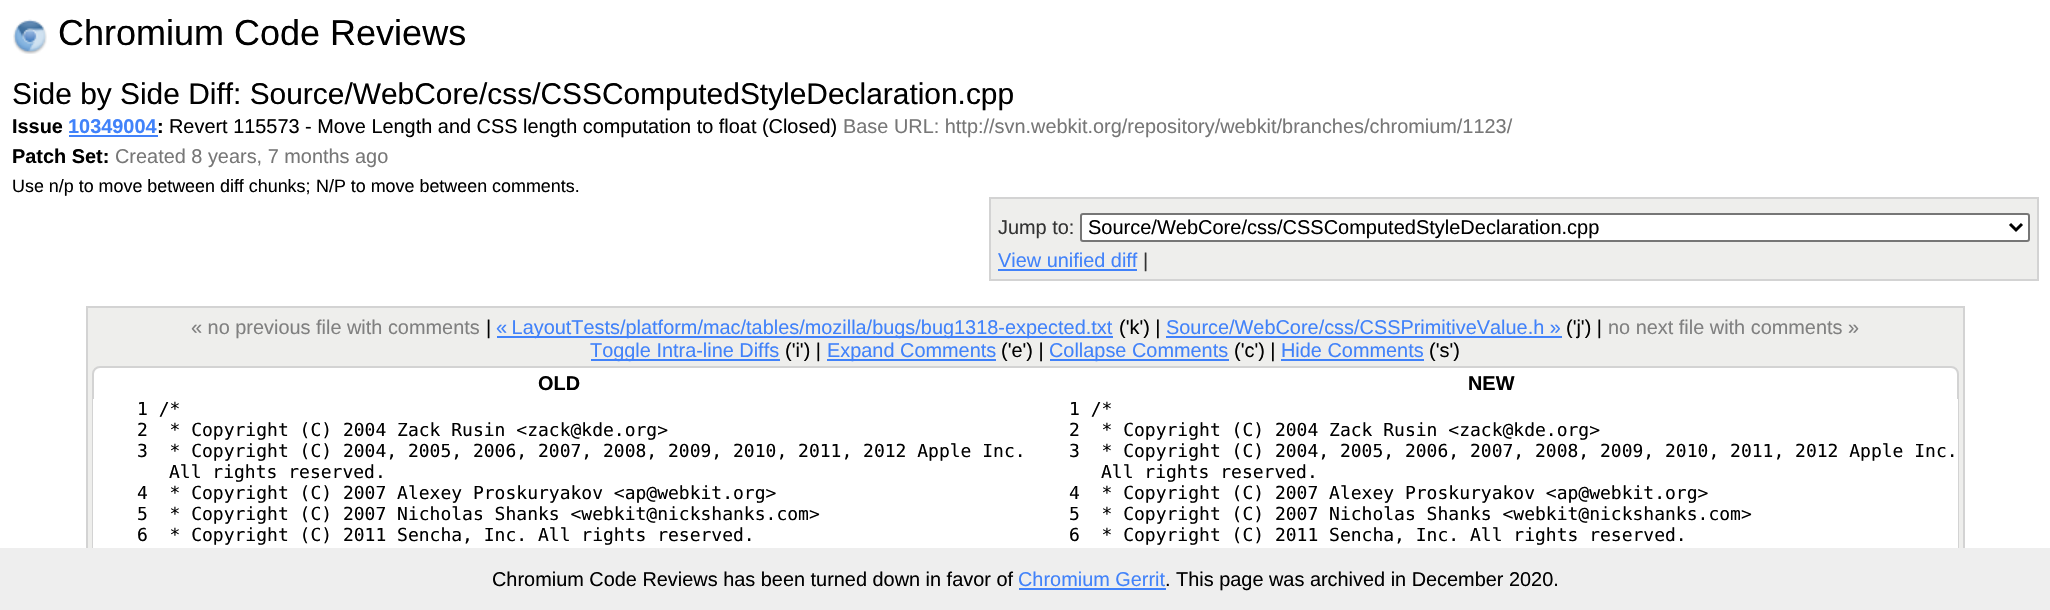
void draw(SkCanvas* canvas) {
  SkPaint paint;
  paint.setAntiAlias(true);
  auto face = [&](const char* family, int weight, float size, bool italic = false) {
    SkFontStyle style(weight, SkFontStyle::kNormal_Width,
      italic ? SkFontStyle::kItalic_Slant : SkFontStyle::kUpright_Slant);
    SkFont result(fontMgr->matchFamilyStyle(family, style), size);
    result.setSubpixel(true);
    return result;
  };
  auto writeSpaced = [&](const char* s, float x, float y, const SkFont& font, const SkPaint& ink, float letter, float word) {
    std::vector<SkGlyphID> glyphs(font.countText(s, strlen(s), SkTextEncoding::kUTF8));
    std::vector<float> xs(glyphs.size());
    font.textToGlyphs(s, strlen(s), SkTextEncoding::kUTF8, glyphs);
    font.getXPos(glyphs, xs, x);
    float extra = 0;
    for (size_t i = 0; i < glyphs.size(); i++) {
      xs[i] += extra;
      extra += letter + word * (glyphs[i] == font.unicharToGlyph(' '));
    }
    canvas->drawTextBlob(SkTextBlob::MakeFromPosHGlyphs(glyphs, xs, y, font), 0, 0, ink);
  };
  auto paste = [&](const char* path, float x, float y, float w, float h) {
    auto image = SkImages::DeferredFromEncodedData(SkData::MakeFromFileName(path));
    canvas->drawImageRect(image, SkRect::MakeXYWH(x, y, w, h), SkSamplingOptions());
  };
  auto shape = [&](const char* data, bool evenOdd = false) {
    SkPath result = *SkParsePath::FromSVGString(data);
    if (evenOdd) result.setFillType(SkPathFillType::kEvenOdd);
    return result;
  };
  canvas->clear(0xffffffff);
  paste("img/1.png", 13, 19, 34, 35);
  paint.setColor(0xff4182fa);
  canvas->drawRect(SkRect::MakeXYWH(69, 135, 89, 2), paint);
  paint.setColor(0xffeeeeec);
  canvas->drawRect(SkRect::MakeXYWH(990, 198, 1048, 82), paint);
  paint.setStroke(true);
  paint.setStrokeWidth(2);
  paint.setColor(0xffd3d3d3);
  canvas->drawRect(SkRect::MakeXYWH(990, 198, 1048, 82), paint);
  paint.setStroke(false);
  paint.setColor(0xffffffff);
  canvas->drawRoundRect(SkRect::MakeXYWH(1081, 214, 948, 27), 2, 2, paint);
  paint.setStroke(true);
  paint.setColor(0xff767676);
  canvas->drawRoundRect(SkRect::MakeXYWH(1081, 214, 948, 27), 2, 2, paint);
  paint.setStrokeWidth(3);
  paint.setColor(0xff000000);
  canvas->drawPath(shape("M2010 224L2016 230L2022 224"), paint);
  paint.setStroke(false);
  paint.setColor(0xff4182fa);
  canvas->drawRect(SkRect::MakeXYWH(998, 269, 139, 2), paint);
  paint.setColor(0xffeeeeec);
  canvas->drawRect(SkRect::MakeXYWH(88, 308, 1875, 240), paint);
  paint.setStroke(true);
  paint.setStrokeWidth(2);
  paint.setColor(0xffd3d3d3);
  canvas->drawRect(SkRect::MakeXYWH(87, 307, 1877, 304), paint);
  paint.setStroke(false);
  {
    const struct { float x, y, w, h; SkColor color; } items[] = {
      {497, 336, 616, 2, 0xff4182fa},
      {1166, 336, 396, 2, 0xff4182fa},
      {591, 359, 189, 2, 0xff4182fa},
      {827, 359, 169, 2, 0xff4182fa},
      {1050, 359, 179, 2, 0xff4182fa},
      {1281, 359, 143, 2, 0xff4182fa},
    };
    for (auto [x, y, w, h, color] : items) {
      paint.setColor(color);
      canvas->drawRect(SkRect::MakeXYWH(x, y, w, h), paint);
    }
  }
  paint.setColor(0xffffffff);
  canvas->drawRoundRect(SkRect::MakeXYWH(93, 367, 1865, 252), 7, 7, paint);
  paint.setStroke(true);
  paint.setColor(0xffd3d3d3);
  canvas->drawRoundRect(SkRect::MakeXYWH(93, 367, 1865, 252), 7, 7, paint);
  paint.setStroke(false);
  {
    const struct { float x, y, w, h; SkColor color; } items[] = {
      {93, 399, 1, 149, 0xffffffff},
      {1957, 399, 1, 149, 0xffffffff},
      {0, 548, 2050, 62, 0xffeeeeee},
      {1019, 588, 147, 2, 0xff4182fa},
    };
    for (auto [x, y, w, h, color] : items) {
      paint.setColor(color);
      canvas->drawRect(SkRect::MakeXYWH(x, y, w, h), paint);
    }
  }
  auto f0 = face("Liberation Sans", 400, 36);
  paint.setColor(0xff000000);
  canvas->drawString("Chromium Code Reviews", 58, 45, f0, paint);
  auto f1 = face("Liberation Sans", 400, 29.9f);
  canvas->drawString("Side by Side Diff: Source/WebCore/css/CSSComputedStyleDeclaration.cpp", 12, 104, f1, paint);
  auto f2 = face("Liberation Sans", 700, 19.9f);
  canvas->drawString("Issue", 12, 133, f2, paint);
  paint.setColor(0xff4182fa);
  canvas->drawString("10349004", 68, 133, f2, paint);
  paint.setColor(0xff000000);
  canvas->drawString(":", 157, 133, f2, paint);
  auto f3 = face("Liberation Sans", 400, 19.9f);
  canvas->drawString("Revert 115573 - Move Length and CSS length computation to float (Closed)", 169, 133, f3, paint);
  paint.setColor(0xff777777);
  canvas->drawString("Base URL: http://svn.webkit.org/repository/webkit/branches/chromium/1123/", 843, 133, f3, paint);
  paint.setColor(0xff000000);
  canvas->drawString("Patch Set:", 12, 163, f2, paint);
  paint.setColor(0xff777777);
  canvas->drawString("Created 8 years, 7 months ago", 115, 163, f3, paint);
  auto f4 = face("Liberation Sans", 400, 17.9f);
  paint.setColor(0xff000000);
  canvas->drawString("Use n/p to move between diff chunks;", 12, 192, f4, paint);
  canvas->drawString("N/P to move between comments.", 316, 192, f4, paint);
  paint.setColor(0xff333333);
  canvas->drawString("Jump to:", 998, 234, f3, paint);
  auto f5 = face("Liberation Sans", 400, 20);
  paint.setColor(0xff000000);
  canvas->drawString("Source/WebCore/css/CSSComputedStyleDeclaration.cpp", 1088, 234, f5, paint);
  paint.setColor(0xff4182fa);
  canvas->drawString("View unified diff", 998, 267, f3, paint);
  paint.setColor(0xff333333);
  canvas->drawString("|", 1143, 267, f3, paint);
  paint.setColor(0xff808080);
  canvas->drawString("« no previous file with comments", 191, 334, f3, paint);
  paint.setColor(0xff000000);
  canvas->drawString("|", 486, 334, f3, paint);
  paint.setColor(0xff4182fa);
  writeSpaced("« LayoutTests/platform/mac/tables/mozilla/bugs/bug1318-expected.txt", 496, 334, f3, paint, 0, -1);
  paint.setColor(0xff000000);
  canvas->drawString("('k') |", 1119, 334, f3, paint);
  paint.setColor(0xff4182fa);
  canvas->drawString("Source/WebCore/css/CSSPrimitiveValue.h »", 1166, 334, f3, paint);
  paint.setColor(0xff000000);
  canvas->drawString("('j') |", 1566, 334, f3, paint);
  paint.setColor(0xff808080);
  canvas->drawString("no next file with comments »", 1608, 334, f3, paint);
  paint.setColor(0xff4182fa);
  canvas->drawString("Toggle Intra-line Diffs", 590, 357, f3, paint);
  paint.setColor(0xff000000);
  canvas->drawString("('i') |", 785, 357, f3, paint);
  paint.setColor(0xff4182fa);
  canvas->drawString("Expand Comments", 827, 357, f3, paint);
  paint.setColor(0xff000000);
  canvas->drawString("('e') |", 1001, 357, f3, paint);
  paint.setColor(0xff4182fa);
  canvas->drawString("Collapse Comments", 1049, 357, f3, paint);
  paint.setColor(0xff000000);
  canvas->drawString("('c') |", 1234, 357, f3, paint);
  paint.setColor(0xff4182fa);
  canvas->drawString("Hide Comments", 1281, 357, f3, paint);
  paint.setColor(0xff000000);
  canvas->drawString("('s')", 1429, 357, f3, paint);
  canvas->drawString("OLD", 538, 390, f2, paint);
  canvas->drawString("NEW", 1468, 390, f2, paint);
  auto f6 = face("DejaVu Sans Mono", 400, 18);
  {
    const struct { const char* s; float x, y; } items[] = {
      {"1 /*", 137, 415},
      {"1 /*", 1069, 415},
      {"2  * Copyright (C) 2004 Zack Rusin <zack@kde.org>", 137, 436},
      {"2  * Copyright (C) 2004 Zack Rusin <zack@kde.org>", 1069, 436},
      {"3  * Copyright (C) 2004, 2005, 2006, 2007, 2008, 2009, 2010, 2011, 2012 Apple Inc.", 137, 457},
      {"All rights reserved.", 169, 478},
      {"3  * Copyright (C) 2004, 2005, 2006, 2007, 2008, 2009, 2010, 2011, 2012 Apple Inc.", 1069, 457},
      {"All rights reserved.", 1101, 478},
      {"4  * Copyright (C) 2007 Alexey Proskuryakov <ap@webkit.org>", 137, 499},
      {"4  * Copyright (C) 2007 Alexey Proskuryakov <ap@webkit.org>", 1069, 499},
      {"5  * Copyright (C) 2007 Nicholas Shanks <webkit@nickshanks.com>", 137, 520},
      {"5  * Copyright (C) 2007 Nicholas Shanks <webkit@nickshanks.com>", 1069, 520},
      {"6  * Copyright (C) 2011 Sencha, Inc. All rights reserved.", 137, 541},
      {"6  * Copyright (C) 2011 Sencha, Inc. All rights reserved.", 1069, 541},
    };
    for (auto [s, x, y] : items) {
      canvas->drawString(s, x, y, f6, paint);
    }
  }
  canvas->drawString("Chromium Code Reviews has been turned down in favor of", 492, 586, f3, paint);
  paint.setColor(0xff4182fa);
  canvas->drawString("Chromium Gerrit", 1018, 586, f3, paint);
  paint.setColor(0xff000000);
  canvas->drawString(". This page was archived in December 2020.", 1165, 586, f3, paint);
}
